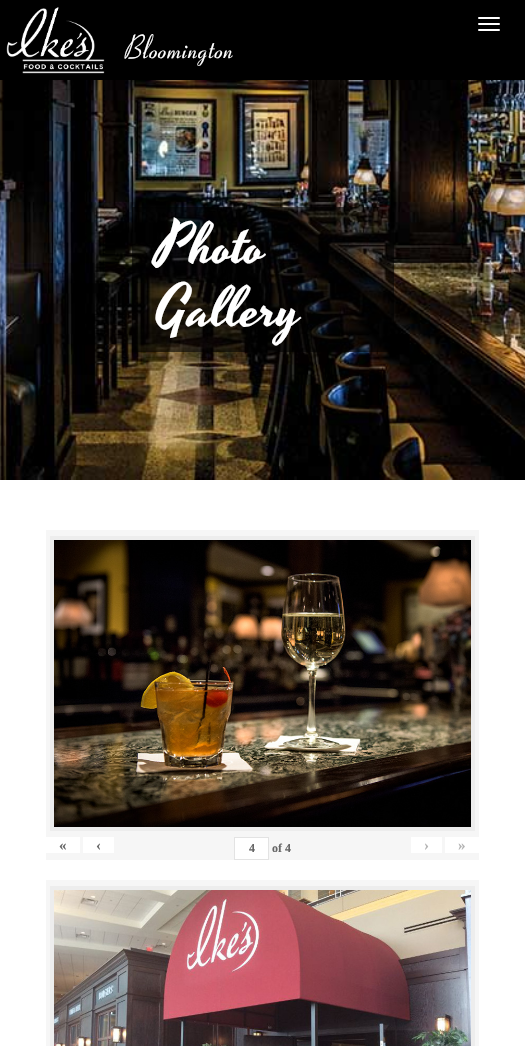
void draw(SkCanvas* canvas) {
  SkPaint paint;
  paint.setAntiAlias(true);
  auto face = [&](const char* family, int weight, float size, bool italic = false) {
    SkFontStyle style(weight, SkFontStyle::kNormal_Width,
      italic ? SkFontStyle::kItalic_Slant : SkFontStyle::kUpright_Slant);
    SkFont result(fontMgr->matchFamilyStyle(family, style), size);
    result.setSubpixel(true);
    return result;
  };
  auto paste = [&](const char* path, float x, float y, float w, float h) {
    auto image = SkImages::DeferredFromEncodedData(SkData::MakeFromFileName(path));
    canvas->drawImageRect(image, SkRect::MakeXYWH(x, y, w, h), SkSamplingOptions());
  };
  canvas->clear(0xffffffff);
  paint.setColor(0xff000000);
  canvas->drawRect(SkRect::MakeXYWH(0, 0, 525, 80), paint);
  paint.setColor(0xffffffff);
  canvas->drawRoundRect(SkRect::MakeXYWH(478, 17, 22, 2), 1, 1, paint);
  canvas->drawRoundRect(SkRect::MakeXYWH(478, 23, 22, 2), 1, 1, paint);
  canvas->drawRoundRect(SkRect::MakeXYWH(478, 29, 22, 2), 1, 1, paint);
  paste("img/1.png", 6, 7, 99, 67);
  paste("img/2.png", 0, 80, 525, 400);
  {
    const struct { float x, y, w, h; SkColor color; } items[] = {
      {132, 207, 262, 145, 0x99000000},
      {46, 530, 433, 330, 0xfff6f6f6},
      {50, 536, 425, 295, 0xffededed},
    };
    for (auto [x, y, w, h, color] : items) {
      paint.setColor(color);
      canvas->drawRect(SkRect::MakeXYWH(x, y, w, h), paint);
    }
  }
  paste("img/3.png", 54, 540, 417, 287);
  paint.setColor(0xffffffff);
  canvas->drawRect(SkRect::MakeXYWH(46, 837, 34, 16), paint);
  canvas->drawRect(SkRect::MakeXYWH(83, 837, 31, 16), paint);
  canvas->drawRect(SkRect::MakeXYWH(234.5f, 837.5f, 34, 22), paint);
  paint.setStroke(true);
  paint.setStrokeWidth(1);
  paint.setColor(0xffe3e3e3);
  canvas->drawRect(SkRect::MakeXYWH(234.5f, 837.5f, 34, 22), paint);
  paint.setStroke(false);
  {
    const struct { float x, y, w, h; SkColor color; } items[] = {
      {411, 837, 31, 16, 0xffffffff},
      {445, 837, 34, 16, 0xffffffff},
      {46, 880, 433, 166, 0xfff6f6f6},
      {50, 886, 425, 160, 0xffededed},
    };
    for (auto [x, y, w, h, color] : items) {
      paint.setColor(color);
      canvas->drawRect(SkRect::MakeXYWH(x, y, w, h), paint);
    }
  }
  paste("img/4.png", 54, 890, 417, 156);
  auto f0 = face("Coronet", 400, 32);
  paint.setColor(0xffffffff);
  canvas->drawString("Bloomington", 121, 58, f0, paint);
  auto f1 = face("Yesteryear", 400, 57);
  canvas->drawString("Photo", 156, 262, f1, paint);
  canvas->drawString("Gallery", 156, 325, f1, paint);
  auto f2 = face("Liberation Serif", 700, 15);
  paint.setColor(0xff666666);
  canvas->drawString("«", 59, 850, f2, paint);
  canvas->drawString("‹", 96, 850, f2, paint);
  auto f3 = face("Liberation Serif", 700, 12);
  canvas->drawString("4", 249, 852, f3, paint);
  canvas->drawString("of 4", 272, 852, f3, paint);
  paint.setColor(0xffb3b3b3);
  canvas->drawString("›", 424, 850, f2, paint);
  canvas->drawString("»", 458, 850, f2, paint);
}
